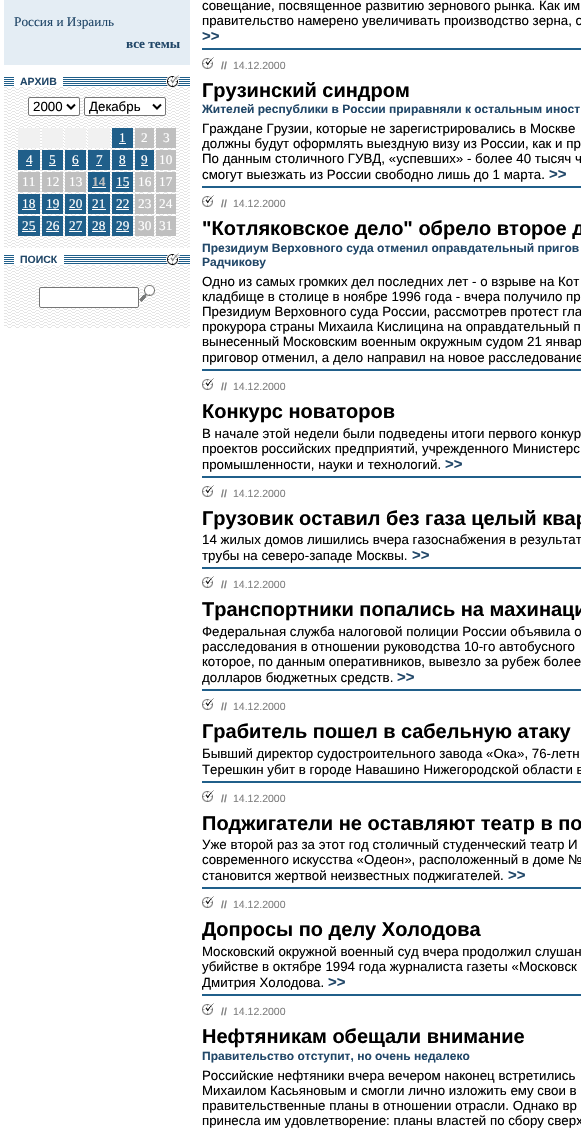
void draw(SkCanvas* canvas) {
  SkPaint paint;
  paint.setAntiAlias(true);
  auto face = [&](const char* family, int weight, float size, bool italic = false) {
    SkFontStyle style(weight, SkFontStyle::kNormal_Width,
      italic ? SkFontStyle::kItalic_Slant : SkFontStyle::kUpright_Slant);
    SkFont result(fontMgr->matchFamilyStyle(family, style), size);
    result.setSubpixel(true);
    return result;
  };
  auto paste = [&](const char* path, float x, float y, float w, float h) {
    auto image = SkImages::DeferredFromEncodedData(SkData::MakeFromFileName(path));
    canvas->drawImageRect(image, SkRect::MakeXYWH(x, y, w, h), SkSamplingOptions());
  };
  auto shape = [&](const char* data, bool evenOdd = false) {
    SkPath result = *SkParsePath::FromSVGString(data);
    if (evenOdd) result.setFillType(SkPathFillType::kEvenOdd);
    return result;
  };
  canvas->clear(0xffffffff);
  paint.setColor(0xffe4edf4);
  canvas->drawRect(SkRect::MakeXYWH(4, 0, 186, 65), paint);
  paste("img/1.png", 4, 77, 186, 9);
  paint.setColor(0xffffffff);
  canvas->drawRect(SkRect::MakeXYWH(14, 77, 49, 9), paint);
  paste("img/2.png", 166, 75, 14, 12);
  paste("img/3.png", 4, 87, 186, 161);
  canvas->drawRoundRect(SkRect::MakeXYWH(28.5f, 97.5f, 51, 18), 1.5f, 1.5f, paint);
  paint.setStroke(true);
  paint.setStrokeWidth(1);
  paint.setColor(0xff767676);
  canvas->drawRoundRect(SkRect::MakeXYWH(28.5f, 97.5f, 51, 18), 1.5f, 1.5f, paint);
  paint.setStrokeWidth(2);
  paint.setColor(0xff000000);
  canvas->drawPath(shape("M67 104.5L71 108.5L75 104.5"), paint);
  paint.setStroke(false);
  paint.setColor(0xffffffff);
  canvas->drawRoundRect(SkRect::MakeXYWH(84.5f, 97.5f, 81, 18), 1.5f, 1.5f, paint);
  paint.setStroke(true);
  paint.setStrokeWidth(1);
  paint.setColor(0xff767676);
  canvas->drawRoundRect(SkRect::MakeXYWH(84.5f, 97.5f, 81, 18), 1.5f, 1.5f, paint);
  paint.setStrokeWidth(2);
  paint.setColor(0xff000000);
  canvas->drawPath(shape("M153 104.5L157 108.5L161 104.5"), paint);
  paint.setStroke(false);
  {
    const struct { float x, y, w, h; SkColor color; } items[] = {
      {18, 128, 22, 20, 0xfff1f1f1},
      {42, 128, 21, 20, 0xfff1f1f1},
      {65, 128, 21, 20, 0xfff1f1f1},
      {88, 128, 22, 20, 0xfff1f1f1},
      {112, 128, 21, 20, 0xff205f8a},
      {119, 143, 7, 1, 0xffffffff},
      {135, 128, 19, 20, 0xffbfbfbf},
      {156, 128, 20, 20, 0xffbfbfbf},
      {18, 150, 22, 20, 0xff205f8a},
      {26, 165, 6, 1, 0xffffffff},
      {42, 150, 21, 20, 0xff205f8a},
      {49, 165, 7, 1, 0xffffffff},
      {65, 150, 21, 20, 0xff205f8a},
      {72, 165, 7, 1, 0xffffffff},
      {88, 150, 22, 20, 0xff205f8a},
      {96, 165, 6, 1, 0xffffffff},
      {112, 150, 21, 20, 0xff205f8a},
      {119, 165, 7, 1, 0xffffffff},
      {135, 150, 19, 20, 0xff205f8a},
      {141, 165, 7, 1, 0xffffffff},
      {156, 150, 20, 20, 0xffbfbfbf},
      {18, 172, 22, 20, 0xffbfbfbf},
      {42, 172, 21, 20, 0xffbfbfbf},
      {65, 172, 21, 20, 0xffbfbfbf},
      {88, 172, 22, 20, 0xff205f8a},
      {92, 187, 14, 1, 0xffffffff},
      {112, 172, 21, 20, 0xff205f8a},
      {116, 187, 13, 1, 0xffffffff},
      {135, 172, 19, 20, 0xffbfbfbf},
      {156, 172, 20, 20, 0xffbfbfbf},
      {18, 194, 22, 20, 0xff205f8a},
      {22, 209, 14, 1, 0xffffffff},
      {42, 194, 21, 20, 0xff205f8a},
      {46, 209, 13, 1, 0xffffffff},
      {65, 194, 21, 20, 0xff205f8a},
      {69, 209, 13, 1, 0xffffffff},
      {88, 194, 22, 20, 0xff205f8a},
      {92, 209, 14, 1, 0xffffffff},
      {112, 194, 21, 20, 0xff205f8a},
      {116, 209, 13, 1, 0xffffffff},
      {135, 194, 19, 20, 0xffbfbfbf},
      {156, 194, 20, 20, 0xffbfbfbf},
      {18, 216, 22, 20, 0xff205f8a},
      {22, 231, 14, 1, 0xffffffff},
      {42, 216, 21, 20, 0xff205f8a},
      {46, 231, 13, 1, 0xffffffff},
      {65, 216, 21, 20, 0xff205f8a},
      {69, 231, 13, 1, 0xffffffff},
      {88, 216, 22, 20, 0xff205f8a},
      {92, 231, 14, 1, 0xffffffff},
      {112, 216, 21, 20, 0xff205f8a},
      {116, 231, 13, 1, 0xffffffff},
      {135, 216, 19, 20, 0xffbfbfbf},
      {156, 216, 20, 20, 0xffbfbfbf},
    };
    for (auto [x, y, w, h, color] : items) {
      paint.setColor(color);
      canvas->drawRect(SkRect::MakeXYWH(x, y, w, h), paint);
    }
  }
  paste("img/1.png", 4, 255, 186, 9);
  paint.setColor(0xffffffff);
  canvas->drawRect(SkRect::MakeXYWH(14, 255, 50, 9), paint);
  paste("img/2.png", 166, 253, 14, 12);
  paste("img/4.png", 4, 265, 186, 63);
  canvas->drawRoundRect(SkRect::MakeXYWH(39.5f, 287.5f, 99, 20), 1.5f, 1.5f, paint);
  paint.setStroke(true);
  paint.setStrokeWidth(1);
  paint.setColor(0xff767676);
  canvas->drawRoundRect(SkRect::MakeXYWH(39.5f, 287.5f, 99, 20), 1.5f, 1.5f, paint);
  paste("img/5.png", 139, 285, 16, 17);
  paint.setStroke(false);
  paint.setColor(0xff205f8a);
  canvas->drawRect(SkRect::MakeXYWH(202, 48, 379, 2), paint);
  paste("img/6.png", 202, 57, 12, 12);
  canvas->drawRect(SkRect::MakeXYWH(202, 186, 379, 2), paint);
  paste("img/6.png", 202, 195, 12, 12);
  canvas->drawRect(SkRect::MakeXYWH(202, 369, 379, 2), paint);
  paste("img/6.png", 202, 378, 12, 12);
  canvas->drawRect(SkRect::MakeXYWH(202, 476, 379, 2), paint);
  paste("img/6.png", 202, 485, 12, 12);
  canvas->drawRect(SkRect::MakeXYWH(202, 567, 379, 2), paint);
  paste("img/6.png", 202, 576, 12, 12);
  canvas->drawRect(SkRect::MakeXYWH(202, 689, 379, 2), paint);
  paste("img/6.png", 202, 698, 12, 12);
  canvas->drawRect(SkRect::MakeXYWH(202, 781, 379, 2), paint);
  paste("img/6.png", 202, 790, 12, 12);
  canvas->drawRect(SkRect::MakeXYWH(202, 887, 379, 2), paint);
  paste("img/6.png", 202, 896, 12, 12);
  canvas->drawRect(SkRect::MakeXYWH(202, 994, 379, 2), paint);
  paste("img/6.png", 202, 1003, 12, 12);
  auto f0 = face("Liberation Serif", 400, 13.3f);
  paint.setColor(0xff214768);
  canvas->drawString("Россия и Израиль", 14, 26, f0, paint);
  auto f1 = face("Liberation Serif", 700, 13.3f);
  canvas->drawString("все темы", 126, 48, f1, paint);
  auto f2 = face("Liberation Sans", 700, 10.5f);
  canvas->drawString("АРХИВ", 20, 85, f2, paint);
  auto f3 = face("Liberation Sans", 400, 13.3f);
  paint.setColor(0xff000000);
  canvas->drawString("2000", 33, 111, f3, paint);
  canvas->drawString("Декабрь", 89, 111, f3, paint);
  paint.setColor(0xffffffff);
  {
    const struct { const char* s; float x, y; } items[] = {
      {"1", 119, 142},
      {"2", 141, 142},
      {"3", 163, 142},
      {"4", 26, 164},
      {"5", 49, 164},
      {"6", 72, 164},
      {"7", 96, 164},
      {"8", 119, 164},
      {"9", 141, 164},
      {"10", 159, 164},
      {"11", 22, 186},
      {"12", 46, 186},
      {"13", 69, 186},
    };
    for (auto [s, x, y] : items) {
      canvas->drawString(s, x, y, f0, paint);
    }
  }
  paint.setColor(0xffbfbfbf);
  canvas->drawString("14", 92, 186, f1, paint);
  paint.setColor(0xffffffff);
  {
    const struct { const char* s; float x, y; } items[] = {
      {"15", 116, 186},
      {"16", 138, 186},
      {"17", 159, 186},
      {"18", 22, 208},
      {"19", 46, 208},
      {"20", 69, 208},
      {"21", 92, 208},
      {"22", 116, 208},
      {"23", 138, 208},
      {"24", 159, 208},
      {"25", 22, 230},
      {"26", 46, 230},
      {"27", 69, 230},
      {"28", 92, 230},
      {"29", 116, 230},
      {"30", 138, 230},
      {"31", 159, 230},
    };
    for (auto [s, x, y] : items) {
      canvas->drawString(s, x, y, f0, paint);
    }
  }
  paint.setColor(0xff214768);
  canvas->drawString("ПОИСК", 20, 263, f2, paint);
  paint.setColor(0xff000000);
  canvas->drawString("совещание, посвященное развитию зернового рынка. Как им", 202, 10, f3, paint);
  canvas->drawString("правительство намерено увеличивать производство зерна, о", 202, 25, f3, paint);
  auto f4 = face("Liberation Sans", 700, 15);
  paint.setColor(0xff214768);
  canvas->drawString(">>", 202, 41, f4, paint);
  paint.setColor(0xff7f7f7f);
  canvas->drawString("//", 221, 69, f2, paint);
  auto f5 = face("Liberation Sans", 400, 10.5f);
  canvas->drawString("14.12.2000", 233, 69, f5, paint);
  auto f6 = face("Liberation Sans", 700, 20);
  paint.setColor(0xff000000);
  canvas->drawString("Грузинский синдром", 202, 97, f6, paint);
  auto f7 = face("Liberation Sans", 700, 12);
  paint.setColor(0xff214768);
  canvas->drawString("Жителей республики в России приравняли к остальным иност", 202, 113, f7, paint);
  paint.setColor(0xff000000);
  {
    const struct { const char* s; float x, y; } items[] = {
      {"Граждане Грузии, которые не зарегистрировались в Москве", 202, 133},
      {"должны будут оформлять выездную визу из России, как и пр", 202, 148},
      {"По данным столичного ГУВД, «успевших» - более 40 тысяч ч", 202, 163},
      {"смогут выезжать из России свободно лишь до 1 марта.", 202, 179},
    };
    for (auto [s, x, y] : items) {
      canvas->drawString(s, x, y, f3, paint);
    }
  }
  paint.setColor(0xff214768);
  canvas->drawString(">>", 549, 179, f4, paint);
  paint.setColor(0xff7f7f7f);
  canvas->drawString("//", 221, 207, f2, paint);
  canvas->drawString("14.12.2000", 233, 207, f5, paint);
  paint.setColor(0xff000000);
  canvas->drawString("\"Котляковское дело\" обрело второе д", 202, 235, f6, paint);
  paint.setColor(0xff214768);
  canvas->drawString("Президиум Верховного суда отменил оправдательный пригов", 202, 252, f7, paint);
  canvas->drawString("Радчикову", 202, 266, f7, paint);
  paint.setColor(0xff000000);
  {
    const struct { const char* s; float x, y; } items[] = {
      {"Одно из самых громких дел последних лет - о взрыве на Кот", 202, 286},
      {"кладбище в столице в ноябре 1996 года - вчера получило пр", 202, 301},
      {"Президиум Верховного суда России, рассмотрев протест гла", 202, 316},
      {"прокурора страны Михаила Кислицина на оправдательный п", 202, 331},
      {"вынесенный Московским военным окружным судом 21 январ", 202, 346},
      {"приговор отменил, а дело направил на новое расследование", 202, 362},
    };
    for (auto [s, x, y] : items) {
      canvas->drawString(s, x, y, f3, paint);
    }
  }
  paint.setColor(0xff7f7f7f);
  canvas->drawString("//", 221, 390, f2, paint);
  canvas->drawString("14.12.2000", 233, 390, f5, paint);
  paint.setColor(0xff000000);
  canvas->drawString("Конкурс новаторов", 202, 418, f6, paint);
  {
    const struct { const char* s; float x, y; } items[] = {
      {"В начале этой недели были подведены итоги первого конкур", 202, 438},
      {"проектов российских предприятий, учрежденного Министерс", 202, 453},
      {"промышленности, науки и технологий.", 202, 469},
    };
    for (auto [s, x, y] : items) {
      canvas->drawString(s, x, y, f3, paint);
    }
  }
  paint.setColor(0xff214768);
  canvas->drawString(">>", 445, 469, f4, paint);
  paint.setColor(0xff7f7f7f);
  canvas->drawString("//", 221, 497, f2, paint);
  canvas->drawString("14.12.2000", 233, 497, f5, paint);
  paint.setColor(0xff000000);
  canvas->drawString("Грузовик оставил без газа целый квар", 202, 525, f6, paint);
  canvas->drawString("14 жилых домов лишились вчера газоснабжения в результат", 202, 544, f3, paint);
  canvas->drawString("трубы на северо-западе Москвы.", 202, 560, f3, paint);
  paint.setColor(0xff214768);
  canvas->drawString(">>", 412, 560, f4, paint);
  paint.setColor(0xff7f7f7f);
  canvas->drawString("//", 221, 588, f2, paint);
  canvas->drawString("14.12.2000", 233, 588, f5, paint);
  paint.setColor(0xff000000);
  canvas->drawString("Транспортники попались на махинаци", 202, 616, f6, paint);
  {
    const struct { const char* s; float x, y; } items[] = {
      {"Федеральная служба налоговой полиции России объявила о", 202, 636},
      {"расследования в отношении руководства 10-го автобусного", 202, 651},
      {"которое, по данным оперативников, вывезло за рубеж более", 202, 666},
      {"долларов бюджетных средств.", 202, 682},
    };
    for (auto [s, x, y] : items) {
      canvas->drawString(s, x, y, f3, paint);
    }
  }
  paint.setColor(0xff214768);
  canvas->drawString(">>", 397, 682, f4, paint);
  paint.setColor(0xff7f7f7f);
  canvas->drawString("//", 221, 710, f2, paint);
  canvas->drawString("14.12.2000", 233, 710, f5, paint);
  paint.setColor(0xff000000);
  canvas->drawString("Грабитель пошел в сабельную атаку", 202, 738, f6, paint);
  canvas->drawString("Бывший директор судостроительного завода «Ока», 76-летн", 202, 758, f3, paint);
  canvas->drawString("Терешкин убит в городе Навашино Нижегородской области в", 202, 774, f3, paint);
  paint.setColor(0xff7f7f7f);
  canvas->drawString("//", 221, 802, f2, paint);
  canvas->drawString("14.12.2000", 233, 802, f5, paint);
  paint.setColor(0xff000000);
  canvas->drawString("Поджигатели не оставляют театр в по", 202, 830, f6, paint);
  {
    const struct { const char* s; float x, y; } items[] = {
      {"Уже второй раз за этот год столичный студенческий театр И", 202, 849},
      {"современного искусства «Одеон», расположенный в доме №", 202, 864},
      {"становится жертвой неизвестных поджигателей.", 202, 880},
    };
    for (auto [s, x, y] : items) {
      canvas->drawString(s, x, y, f3, paint);
    }
  }
  paint.setColor(0xff214768);
  canvas->drawString(">>", 508, 880, f4, paint);
  paint.setColor(0xff7f7f7f);
  canvas->drawString("//", 221, 908, f2, paint);
  canvas->drawString("14.12.2000", 233, 908, f5, paint);
  paint.setColor(0xff000000);
  canvas->drawString("Допросы по делу Холодова", 202, 936, f6, paint);
  {
    const struct { const char* s; float x, y; } items[] = {
      {"Московский окружной военный суд вчера продолжил слушан", 202, 956},
      {"убийстве в октябре 1994 года журналиста газеты «Московск", 202, 971},
      {"Дмитрия Холодова.", 202, 987},
    };
    for (auto [s, x, y] : items) {
      canvas->drawString(s, x, y, f3, paint);
    }
  }
  paint.setColor(0xff214768);
  canvas->drawString(">>", 328, 987, f4, paint);
  paint.setColor(0xff7f7f7f);
  canvas->drawString("//", 221, 1015, f2, paint);
  canvas->drawString("14.12.2000", 233, 1015, f5, paint);
  paint.setColor(0xff000000);
  canvas->drawString("Нефтяникам обещали внимание", 202, 1043, f6, paint);
  paint.setColor(0xff214768);
  canvas->drawString("Правительство отступит, но очень недалеко", 202, 1060, f7, paint);
  paint.setColor(0xff000000);
  {
    const struct { const char* s; float x, y; } items[] = {
      {"Российские нефтяники вчера вечером наконец встретились", 202, 1080},
      {"Михаилом Касьяновым и смогли лично изложить ему свои в", 202, 1095},
      {"правительственные планы в отношении отрасли. Однако вр", 202, 1110},
      {"принесла им удовлетворение: планы властей по сбору сверх", 202, 1125},
    };
    for (auto [s, x, y] : items) {
      canvas->drawString(s, x, y, f3, paint);
    }
  }
}
